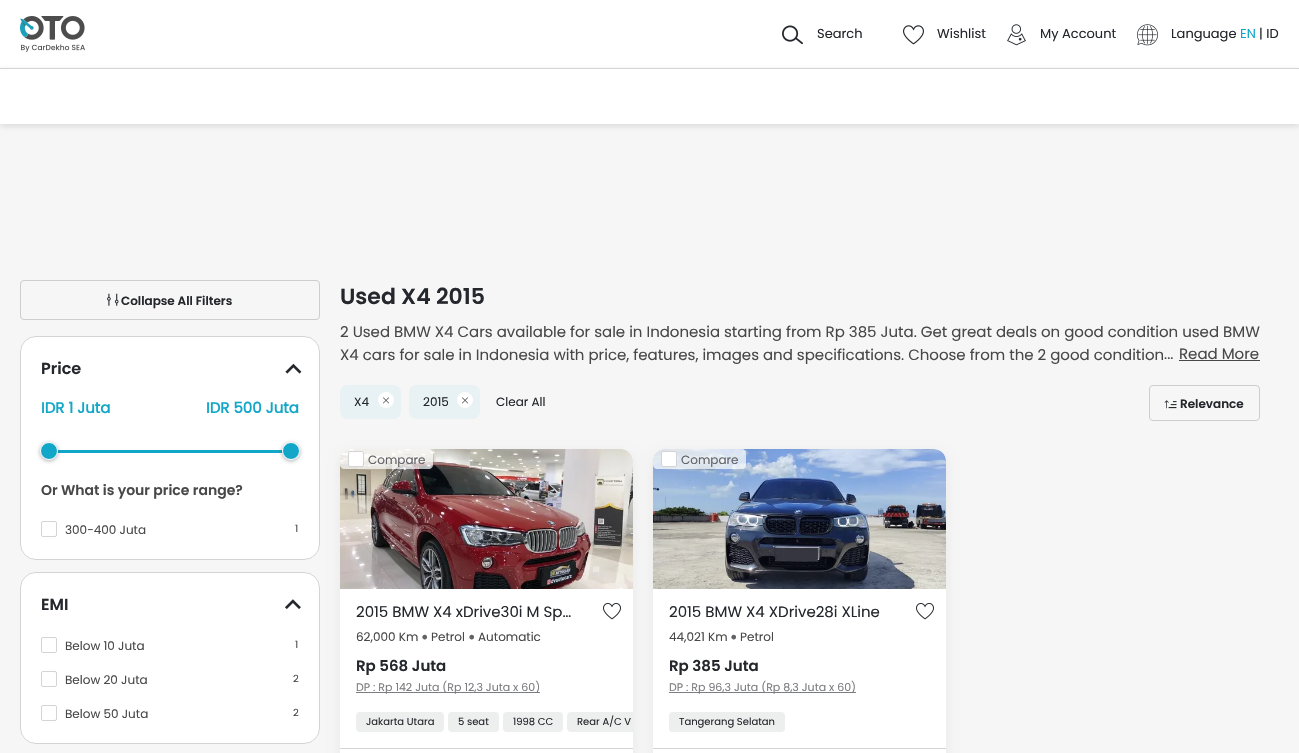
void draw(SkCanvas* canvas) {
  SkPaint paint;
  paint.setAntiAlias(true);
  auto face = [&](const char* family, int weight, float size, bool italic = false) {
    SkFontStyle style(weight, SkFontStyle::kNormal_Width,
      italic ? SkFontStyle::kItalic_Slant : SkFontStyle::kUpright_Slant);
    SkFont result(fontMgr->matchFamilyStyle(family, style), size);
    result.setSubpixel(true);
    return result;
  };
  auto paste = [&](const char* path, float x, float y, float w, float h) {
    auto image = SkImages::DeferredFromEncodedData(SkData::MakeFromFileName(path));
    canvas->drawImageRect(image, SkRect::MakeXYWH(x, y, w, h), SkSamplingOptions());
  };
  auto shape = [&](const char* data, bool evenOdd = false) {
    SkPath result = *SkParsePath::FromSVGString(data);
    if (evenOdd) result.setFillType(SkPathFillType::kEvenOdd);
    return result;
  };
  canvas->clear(0xfff6f6f6);
  paint.setColor(0xffffffff);
  canvas->drawRect(SkRect::MakeXYWH(0, 0, 1299, 68), paint);
  paste("img/1.png", 20, 16, 65, 37);
  paste("img/2.png", 782, 25, 21, 20);
  paste("img/3.png", 903, 25, 21, 20);
  paste("img/4.png", 1007, 24, 19, 22);
  paste("img/5.png", 1137, 24, 21, 22);
  paint.setColor(0x2624272c);
  paint.setMaskFilter(SkMaskFilter::MakeBlur(kNormal_SkBlurStyle, 3));
  canvas->drawRect(SkRect::MakeXYWH(0, 70, 1299, 56), paint);
  paint.setMaskFilter(nullptr);
  paint.setColor(0xffffffff);
  canvas->drawRect(SkRect::MakeXYWH(0, 69, 1299, 55), paint);
  paint.setColor(0xffd3d4d5);
  canvas->drawRect(SkRect::MakeXYWH(0, 68, 1299, 1), paint);
  paint.setStroke(true);
  paint.setStrokeWidth(1);
  paint.setColor(0xffcccdce);
  canvas->drawRoundRect(SkRect::MakeXYWH(20.5f, 280.5f, 299, 39), 3.5f, 3.5f, paint);
  paste("img/6.png", 107, 293, 12, 13);
  paint.setStroke(false);
  paint.setColor(0xffffffff);
  canvas->drawRoundRect(SkRect::MakeXYWH(20, 336, 300, 224), 16, 16, paint);
  paint.setStroke(true);
  paint.setColor(0x3324272c);
  canvas->drawRoundRect(SkRect::MakeXYWH(20.5f, 336.5f, 299, 223), 15.5f, 15.5f, paint);
  paste("img/7.png", 285, 363, 17, 11);
  paint.setStroke(false);
  paint.setColor(0xff12a7c8);
  canvas->drawRect(SkRect::MakeXYWH(57, 450, 226, 3), paint);
  paint.setColor(0x6628333f);
  paint.setMaskFilter(SkMaskFilter::MakeBlur(kNormal_SkBlurStyle, 2));
  canvas->drawRoundRect(SkRect::MakeXYWH(40, 443, 18, 18), 9, 9, paint);
  paint.setMaskFilter(nullptr);
  paint.setColor(0xff12a7c8);
  canvas->drawCircle(49, 451, 8.5f, paint);
  paint.setStroke(true);
  paint.setColor(0xffffffff);
  canvas->drawCircle(49, 451, 8.5f, paint);
  paint.setStroke(false);
  paint.setColor(0x6628333f);
  paint.setMaskFilter(SkMaskFilter::MakeBlur(kNormal_SkBlurStyle, 2));
  canvas->drawRoundRect(SkRect::MakeXYWH(282, 443, 18, 18), 9, 9, paint);
  paint.setMaskFilter(nullptr);
  paint.setColor(0xff12a7c8);
  canvas->drawCircle(291, 451, 8.5f, paint);
  paint.setStroke(true);
  paint.setColor(0xffffffff);
  canvas->drawCircle(291, 451, 8.5f, paint);
  paint.setColor(0xffd3d4d5);
  canvas->drawRoundRect(SkRect::MakeXYWH(41.5f, 521.5f, 15, 15), 1.5f, 1.5f, paint);
  paint.setStroke(false);
  paint.setColor(0xffffffff);
  canvas->drawRoundRect(SkRect::MakeXYWH(20, 572, 300, 172), 16, 16, paint);
  paint.setStroke(true);
  paint.setColor(0x3324272c);
  canvas->drawRoundRect(SkRect::MakeXYWH(20.5f, 572.5f, 299, 171), 15.5f, 15.5f, paint);
  paste("img/8.png", 285, 599, 16, 10);
  paint.setColor(0xffd3d4d5);
  canvas->drawRoundRect(SkRect::MakeXYWH(41.5f, 637.5f, 15, 15), 1.5f, 1.5f, paint);
  canvas->drawRoundRect(SkRect::MakeXYWH(41.5f, 671.5f, 15, 15), 1.5f, 1.5f, paint);
  canvas->drawRoundRect(SkRect::MakeXYWH(41.5f, 705.5f, 15, 15), 1.5f, 1.5f, paint);
  paint.setStroke(false);
  paint.setColor(0xff484848);
  canvas->drawRect(SkRect::MakeXYWH(1179, 360, 81, 1), paint);
  paint.setColor(0xffe8f1f3);
  canvas->drawRoundRect(SkRect::MakeXYWH(340, 385, 61, 34), 8, 8, paint);
  paint.setColor(0xffffffff);
  canvas->drawCircle(386, 400, 8, paint);
  paste("img/9.png", 383, 397, 6, 7);
  paint.setColor(0xffe8f1f3);
  canvas->drawRoundRect(SkRect::MakeXYWH(409, 385, 71, 34), 8, 8, paint);
  paint.setColor(0xffffffff);
  canvas->drawCircle(465, 400, 8, paint);
  paste("img/9.png", 462, 397, 6, 7);
  paint.setStroke(true);
  paint.setColor(0xffcccdce);
  canvas->drawRoundRect(SkRect::MakeXYWH(1149.5f, 385.5f, 110, 35), 3.5f, 3.5f, paint);
  paste("img/10.png", 1164, 400, 13, 9);
  paint.setStroke(false);
  paint.setColor(0x0f000000);
  paint.setMaskFilter(SkMaskFilter::MakeBlur(kNormal_SkBlurStyle, 6));
  canvas->drawRoundRect(SkRect::MakeXYWH(340, 453, 293, 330), 12, 12, paint);
  paint.setMaskFilter(nullptr);
  paint.setColor(0xffffffff);
  canvas->drawRoundRect(SkRect::MakeXYWH(340, 449, 293, 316), 12, 12, paint);
  paint.setColor(0xfff4f6f9);
  canvas->drawPath(shape("M352 449H621C627.5 449 633 454.5 633 461V589H340V461C340 454.5 345.5 449 352 449Z"), paint);
  paste("img/11.png", 340, 449, 293, 140);
  paint.setColor(0xb3ffffff);
  canvas->drawPath(shape("M352 449H429C431 449 433 451 433 453V465C433 467 431 469 429 469H344C342 469 340 467 340 465V461C340 454.5 345.5 449 352 449Z"), paint);
  paint.setColor(0xffffffff);
  canvas->drawRoundRect(SkRect::MakeXYWH(348, 451, 16, 16), 2, 2, paint);
  paint.setStroke(true);
  paint.setColor(0x3324272c);
  canvas->drawRoundRect(SkRect::MakeXYWH(348.5f, 451.5f, 15, 15), 1.5f, 1.5f, paint);
  paste("img/12.png", 603, 603, 18, 17);
  paint.setStroke(false);
  paint.setColor(0xff7c7d80);
  canvas->drawRect(SkRect::MakeXYWH(356, 692, 184, 1), paint);
  paint.setColor(0xffedeeee);
  canvas->drawRoundRect(SkRect::MakeXYWH(356, 712, 88, 20), 4, 4, paint);
  canvas->drawRoundRect(SkRect::MakeXYWH(448, 712, 51, 20), 4, 4, paint);
  canvas->drawRoundRect(SkRect::MakeXYWH(503, 712, 60, 20), 4, 4, paint);
  canvas->drawPath(shape("M571 712H633V732H571C569 732 567 730 567 728V716C567 714 569 712 571 712Z"), paint);
  paint.setColor(0xffd3d4d5);
  canvas->drawRect(SkRect::MakeXYWH(340, 748, 293, 1), paint);
  paint.setColor(0x0f000000);
  paint.setMaskFilter(SkMaskFilter::MakeBlur(kNormal_SkBlurStyle, 6));
  canvas->drawRoundRect(SkRect::MakeXYWH(653, 453, 293, 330), 12, 12, paint);
  paint.setMaskFilter(nullptr);
  paint.setColor(0xffffffff);
  canvas->drawRoundRect(SkRect::MakeXYWH(653, 449, 293, 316), 12, 12, paint);
  paint.setColor(0xfff4f6f9);
  canvas->drawPath(shape("M665 449H934C940.5 449 946 454.5 946 461V589H653V461C653 454.5 658.5 449 665 449Z"), paint);
  paste("img/13.png", 653, 449, 293, 140);
  paint.setColor(0xb3ffffff);
  canvas->drawPath(shape("M665 449H742C744 449 746 451 746 453V465C746 467 744 469 742 469H657C655 469 653 467 653 465V461C653 454.5 658.5 449 665 449Z"), paint);
  paint.setColor(0xffffffff);
  canvas->drawRoundRect(SkRect::MakeXYWH(661, 451, 16, 16), 2, 2, paint);
  paint.setStroke(true);
  paint.setColor(0x3324272c);
  canvas->drawRoundRect(SkRect::MakeXYWH(661.5f, 451.5f, 15, 15), 1.5f, 1.5f, paint);
  paste("img/12.png", 916, 603, 18, 17);
  paint.setStroke(false);
  paint.setColor(0xff7c7d80);
  canvas->drawRect(SkRect::MakeXYWH(669, 692, 187, 1), paint);
  paint.setColor(0xffedeeee);
  canvas->drawRoundRect(SkRect::MakeXYWH(669, 712, 116, 20), 4, 4, paint);
  paint.setColor(0xffd3d4d5);
  canvas->drawRect(SkRect::MakeXYWH(653, 748, 293, 1), paint);
  auto f0 = face("Poppins", 400, 13);
  paint.setColor(0xff24272c);
  {
    const struct { const char* s; float x, y; } items[] = {
      {"Search", 817, 38},
      {"Wishlist", 937, 38},
      {"My Account", 1040, 38},
      {"Language", 1171, 38},
    };
    for (auto [s, x, y] : items) {
      canvas->drawString(s, x, y, f0, paint);
    }
  }
  paint.setColor(0xff12a7c8);
  canvas->drawString("EN", 1240, 38, f0, paint);
  paint.setColor(0xff24272c);
  canvas->drawString("| ID", 1259, 38, f0, paint);
  auto f1 = face("Poppins", 600, 12);
  canvas->drawString("Collapse All Filters", 121, 305, f1, paint);
  auto f2 = face("Poppins", 600, 16);
  canvas->drawString("Price", 41, 374, f2, paint);
  auto f3 = face("Poppins", 700, 15);
  paint.setColor(0xff12a7c8);
  canvas->drawString("IDR 1 Juta", 41, 413, f3, paint);
  canvas->drawString("IDR 500 Juta", 206, 413, f3, paint);
  auto f4 = face("Poppins", 600, 14);
  paint.setColor(0xff484848);
  canvas->drawString("Or What is your price range?", 41, 495, f4, paint);
  auto f5 = face("Poppins", 400, 12);
  canvas->drawString("300-400 Juta", 65, 534, f5, paint);
  auto f6 = face("Poppins", 400, 10);
  canvas->drawString("1", 295, 532, f6, paint);
  paint.setColor(0xff24272c);
  canvas->drawString("EMI", 41, 610, f2, paint);
  paint.setColor(0xff484848);
  canvas->drawString("Below 10 Juta", 65, 650, f5, paint);
  canvas->drawString("1", 295, 648, f6, paint);
  canvas->drawString("Below 20 Juta", 65, 684, f5, paint);
  canvas->drawString("2", 293, 682, f6, paint);
  canvas->drawString("Below 50 Juta", 65, 718, f5, paint);
  canvas->drawString("2", 293, 716, f6, paint);
  auto f7 = face("Poppins", 600, 22);
  paint.setColor(0xff24272c);
  canvas->drawString("Used X4 2015", 340, 304, f7, paint);
  auto f8 = face("Poppins", 400, 15);
  paint.setColor(0xff484848);
  {
    const struct { const char* s; float x, y; } items[] = {
      {"2 Used BMW X4 Cars available for sale in Indonesia starting from Rp 385 Juta. Get great deals on good condition used BMW", 340, 337},
      {"X4 cars for sale in Indonesia with price, features, images and specifications. Choose from the 2 good condition", 340, 360},
      {"...", 1164, 359},
      {"Read More", 1179, 359},
    };
    for (auto [s, x, y] : items) {
      canvas->drawString(s, x, y, f8, paint);
    }
  }
  paint.setColor(0xff24272c);
  {
    const struct { const char* s; float x, y; } items[] = {
      {"X4", 354, 406},
      {"2015", 423, 406},
      {"Clear All", 496, 406},
    };
    for (auto [s, x, y] : items) {
      canvas->drawString(s, x, y, f5, paint);
    }
  }
  canvas->drawString("Relevance", 1180, 408, f1, paint);
  paint.setColor(0xff626366);
  canvas->drawString("Compare", 368, 464, f5, paint);
  paint.setColor(0xff24272c);
  canvas->drawString("2015 BMW X4 xDrive30i M Sp…", 356, 617, f8, paint);
  paint.setColor(0xff484848);
  canvas->drawString("62,000 Km", 356, 641, f5, paint);
  auto f9 = face("Poppins", 700, 17);
  paint.setColor(0xff626366);
  canvas->drawString("•", 421, 643, f9, paint);
  paint.setColor(0xff484848);
  canvas->drawString("Petrol", 431, 641, f5, paint);
  paint.setColor(0xff626366);
  canvas->drawString("•", 468, 643, f9, paint);
  paint.setColor(0xff484848);
  canvas->drawString("Automatic", 478, 641, f5, paint);
  auto f10 = face("Poppins", 600, 15);
  paint.setColor(0xff24272c);
  canvas->drawString("Rp 568 Juta", 356, 671, f10, paint);
  auto f11 = face("Poppins", 400, 11);
  paint.setColor(0xff7b7d80);
  canvas->drawString("DP : Rp 142 Juta (Rp 12,3 Juta x 60)", 356, 691, f11, paint);
  paint.setColor(0xff24272c);
  {
    const struct { const char* s; float x, y; } items[] = {
      {"Jakarta Utara", 366, 725},
      {"5 seat", 458, 725},
      {"1998 CC", 513, 725},
      {"Rear A/C V", 577, 725},
    };
    for (auto [s, x, y] : items) {
      canvas->drawString(s, x, y, f6, paint);
    }
  }
  paint.setColor(0xff626366);
  canvas->drawString("Compare", 681, 464, f5, paint);
  paint.setColor(0xff24272c);
  canvas->drawString("2015 BMW X4 XDrive28i XLine", 669, 617, f8, paint);
  paint.setColor(0xff484848);
  canvas->drawString("44,021 Km", 669, 641, f5, paint);
  paint.setColor(0xff626366);
  canvas->drawString("•", 730, 643, f9, paint);
  paint.setColor(0xff484848);
  canvas->drawString("Petrol", 740, 641, f5, paint);
  paint.setColor(0xff24272c);
  canvas->drawString("Rp 385 Juta", 669, 671, f10, paint);
  paint.setColor(0xff7b7d80);
  canvas->drawString("DP : Rp 96,3 Juta (Rp 8,3 Juta x 60)", 669, 691, f11, paint);
  paint.setColor(0xff24272c);
  canvas->drawString("Tangerang Selatan", 679, 725, f6, paint);
}
